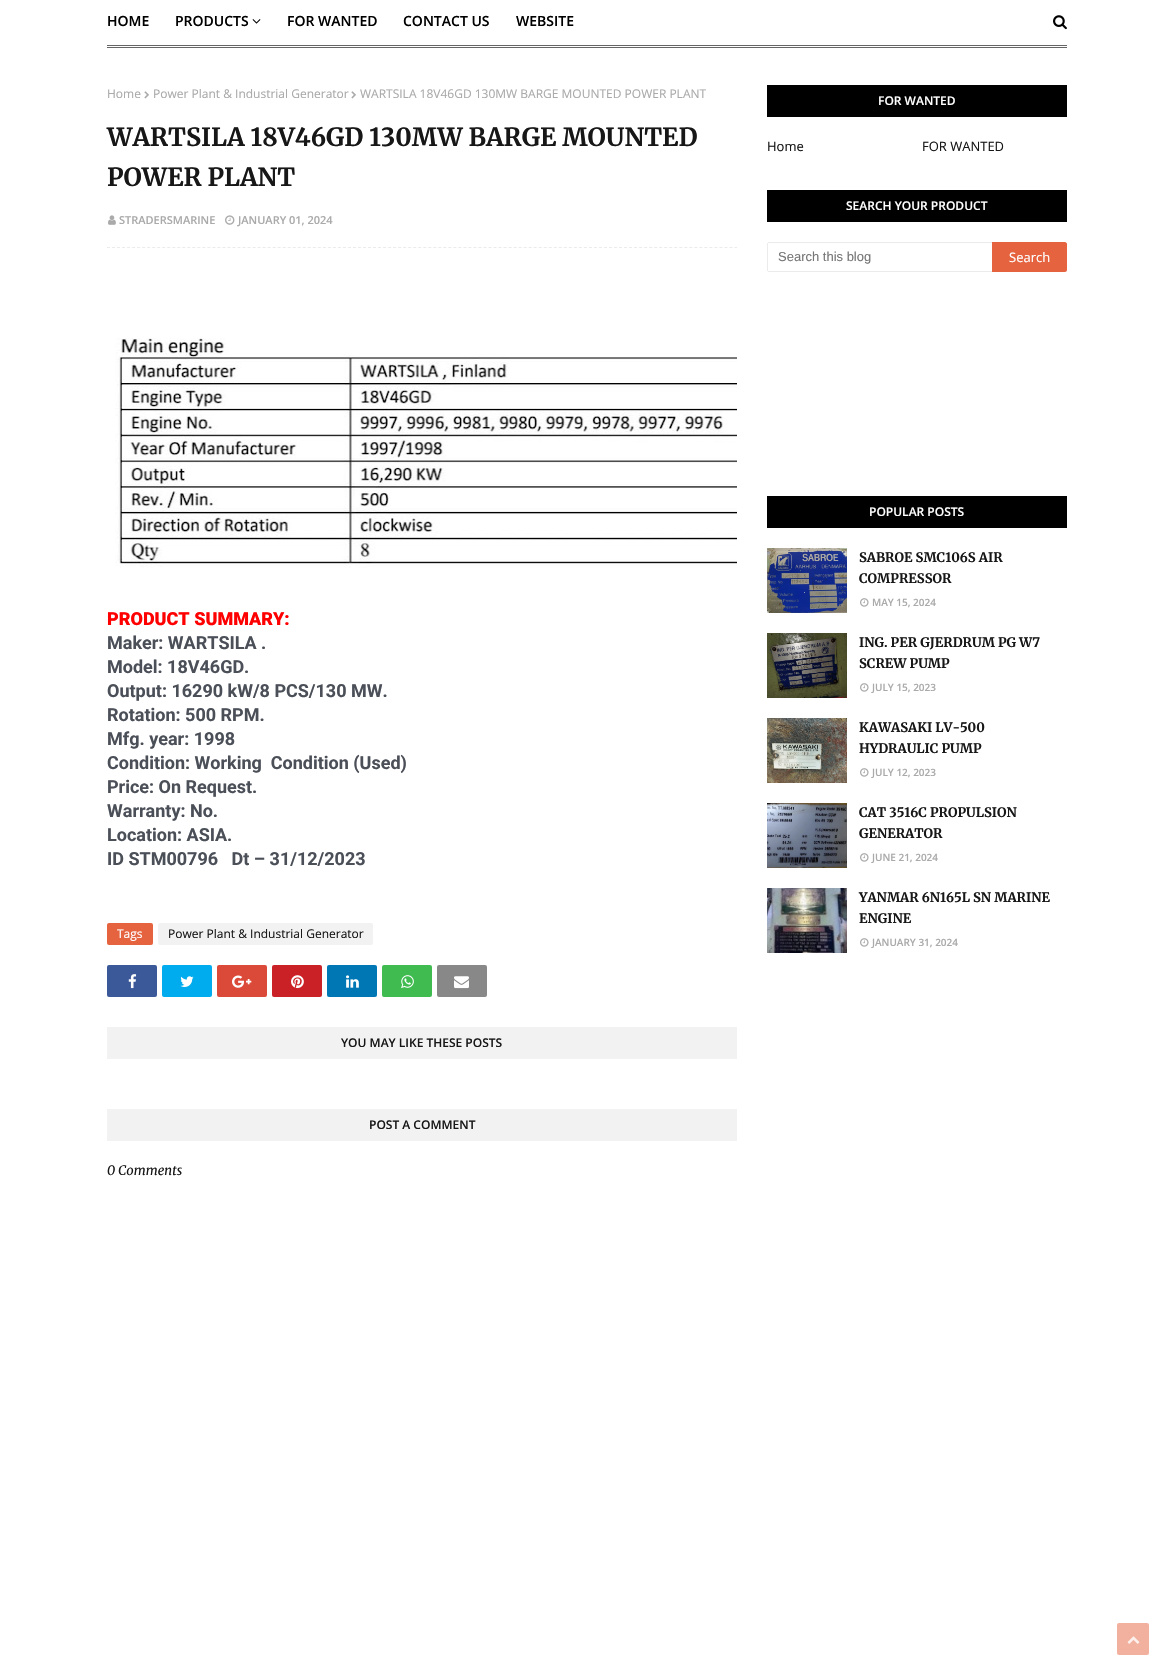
void draw(SkCanvas* canvas) {
  SkPaint paint;
  paint.setAntiAlias(true);
  auto face = [&](const char* family, int weight, float size, bool italic = false) {
    SkFontStyle style(weight, SkFontStyle::kNormal_Width,
      italic ? SkFontStyle::kItalic_Slant : SkFontStyle::kUpright_Slant);
    SkFont result(fontMgr->matchFamilyStyle(family, style), size);
    result.setSubpixel(true);
    return result;
  };
  auto paste = [&](const char* path, float x, float y, float w, float h) {
    auto image = SkImages::DeferredFromEncodedData(SkData::MakeFromFileName(path));
    canvas->drawImageRect(image, SkRect::MakeXYWH(x, y, w, h), SkSamplingOptions());
  };
  auto shape = [&](const char* data, bool evenOdd = false) {
    SkPath result = *SkParsePath::FromSVGString(data);
    if (evenOdd) result.setFillType(SkPathFillType::kEvenOdd);
    return result;
  };
  canvas->clear(0xffffffff);
  paint.setColor(0xff666666);
  canvas->drawRect(SkRect::MakeXYWH(107, 45, 960, 1), paint);
  canvas->drawRect(SkRect::MakeXYWH(107, 47, 960, 1), paint);
  paste("img/1.png", 252, 19, 9, 5);
  paste("img/2.png", 1053, 15, 14, 15);
  paste("img/3.png", 144, 91, 5, 8);
  paste("img/3.png", 351, 91, 5, 8);
  paste("img/4.png", 108, 215, 8, 10);
  paste("img/5.png", 225, 215, 10, 10);
  paint.setStroke(true);
  paint.setStrokeWidth(1);
  paint.setColor(0xffebebeb);
  paint.setPathEffect(SkDashPathEffect::Make({{3, 2.02f}}, 0));
  canvas->drawPath(shape("M107 247.5H737"), paint);
  paint.setPathEffect(nullptr);
  paste("img/6.png", 115, 338, 622, 230);
  paint.setStroke(false);
  paint.setColor(0xffe5633f);
  canvas->drawRoundRect(SkRect::MakeXYWH(107, 923, 46, 22), 2, 2, paint);
  paint.setColor(0xfff2f2f2);
  canvas->drawRoundRect(SkRect::MakeXYWH(158, 923, 215, 22), 2, 2, paint);
  paint.setColor(0xff3b5999);
  canvas->drawRoundRect(SkRect::MakeXYWH(107, 965, 50, 32), 2, 2, paint);
  paste("img/7.png", 128, 974, 9, 15);
  paint.setColor(0xff00acee);
  canvas->drawRoundRect(SkRect::MakeXYWH(162, 965, 50, 32), 2, 2, paint);
  paste("img/8.png", 180, 976, 14, 11);
  paint.setColor(0xffdb4a39);
  canvas->drawRoundRect(SkRect::MakeXYWH(217, 965, 50, 32), 2, 2, paint);
  paste("img/9.png", 232, 975, 20, 13);
  paint.setColor(0xffca2127);
  canvas->drawRoundRect(SkRect::MakeXYWH(272, 965, 50, 32), 2, 2, paint);
  paste("img/10.png", 291, 975, 13, 14);
  paint.setColor(0xff0077b5);
  canvas->drawRoundRect(SkRect::MakeXYWH(327, 965, 50, 32), 2, 2, paint);
  paste("img/11.png", 346, 975, 13, 13);
  paint.setColor(0xff3fbb50);
  canvas->drawRoundRect(SkRect::MakeXYWH(382, 965, 50, 32), 2, 2, paint);
  paste("img/12.png", 401, 975, 13, 13);
  paint.setColor(0xff888888);
  canvas->drawRoundRect(SkRect::MakeXYWH(437, 965, 50, 32), 2, 2, paint);
  paste("img/13.png", 454, 976, 15, 13);
  {
    const struct { float x, y, w, h; SkColor color; } items[] = {
      {107, 1027, 630, 32, 0xfff2f2f2},
      {107, 1109, 630, 32, 0xfff2f2f2},
      {767, 85, 300, 32, 0xff000000},
      {767, 190, 300, 32, 0xff000000},
      {768, 242, 224, 1, 0xffebebeb},
      {768, 271, 224, 1, 0xffebebeb},
      {767, 243, 1, 28, 0xffebebeb},
    };
    for (auto [x, y, w, h, color] : items) {
      paint.setColor(color);
      canvas->drawRect(SkRect::MakeXYWH(x, y, w, h), paint);
    }
  }
  paint.setColor(0xffe5633f);
  canvas->drawPath(shape("M992 242H1065C1066 242 1067 243 1067 244V270C1067 271 1066 272 1065 272H992Z"), paint);
  paint.setColor(0xff000000);
  canvas->drawRect(SkRect::MakeXYWH(767, 496, 300, 32), paint);
  paste("img/14.png", 767, 548, 80, 65);
  paste("img/15.png", 860, 598, 9, 9);
  paste("img/16.png", 767, 633, 80, 65);
  paste("img/15.png", 860, 683, 9, 9);
  paste("img/17.png", 767, 718, 80, 65);
  paste("img/15.png", 860, 768, 9, 9);
  paste("img/18.png", 767, 803, 80, 65);
  paste("img/15.png", 860, 853, 9, 9);
  paste("img/19.png", 767, 888, 80, 65);
  paste("img/15.png", 860, 938, 9, 9);
  paint.setColor(0xfff2b19f);
  canvas->drawRoundRect(SkRect::MakeXYWH(1117, 1623, 32, 32), 2, 2, paint);
  paste("img/20.png", 1127, 1636, 13, 8);
  auto f0 = face("Open Sans", 600, 14);
  paint.setColor(0xff000000);
  {
    const struct { const char* s; float x, y; } items[] = {
      {"HOME", 107, 26},
      {"PRODUCTS", 175, 26},
      {"FOR WANTED", 287, 26},
      {"CONTACT US", 403, 26},
      {"WEBSITE", 516, 26},
    };
    for (auto [s, x, y] : items) {
      canvas->drawString(s, x, y, f0, paint);
    }
  }
  auto f1 = face("Open Sans", 400, 12);
  paint.setColor(0xffaaaaaa);
  {
    const struct { const char* s; float x, y; } items[] = {
      {"Home", 107, 98},
      {"Power Plant & Industrial Generator", 153, 98},
      {"WARTSILA 18V46GD 130MW BARGE MOUNTED POWER PLANT", 360, 98},
    };
    for (auto [s, x, y] : items) {
      canvas->drawString(s, x, y, f1, paint);
    }
  }
  auto f2 = face("Merriweather", 700, 25);
  paint.setColor(0xff171717);
  canvas->drawString("WARTSILA 18V46GD 130MW BARGE MOUNTED", 107, 146, f2, paint);
  canvas->drawString("POWER PLANT", 107, 186, f2, paint);
  auto f3 = face("Open Sans", 600, 11);
  paint.setColor(0xffaaaaaa);
  canvas->drawString("STRADERSMARINE", 119, 224, f3, paint);
  canvas->drawString("JANUARY 01, 2024", 238, 224, f3, paint);
  auto f4 = face("Roboto", 900, 18);
  paint.setColor(0xffff0000);
  canvas->drawString("PRODUCT SUMMARY:", 107, 625, f4, paint);
  auto f5 = face("Roboto", 700, 18);
  paint.setColor(0xff4b4f58);
  {
    const struct { const char* s; float x, y; } items[] = {
      {"Maker: WARTSILA .", 107, 649},
      {"Model: 18V46GD.", 107, 673},
      {"Output: 16290 kW/8 PCS/130 MW.", 107, 697},
      {"Rotation: 500 RPM.", 107, 721},
      {"Mfg. year: 1998", 107, 745},
      {"Condition: Working  Condition (Used)", 107, 769},
      {"Price: On Request.", 107, 793},
      {"Warranty: No.", 107, 817},
      {"Location: ASIA.", 107, 841},
      {"ID STM00796   Dt – 31/12/2023", 107, 865},
    };
    for (auto [s, x, y] : items) {
      canvas->drawString(s, x, y, f5, paint);
    }
  }
  paint.setColor(0xffffffff);
  canvas->drawString("Tags", 117, 938, f1, paint);
  paint.setColor(0xff171717);
  canvas->drawString("Power Plant & Industrial Generator", 168, 938, f1, paint);
  auto f6 = face("Open Sans", 600, 12);
  canvas->drawString("YOU MAY LIKE THESE POSTS", 341, 1047, f6, paint);
  canvas->drawString("POST A COMMENT", 369, 1129, f6, paint);
  auto f7 = face("Merriweather", 400, 13, true);
  canvas->drawString("0 Comments", 107, 1175, f7, paint);
  paint.setColor(0xffffffff);
  canvas->drawString("FOR WANTED", 878, 105, f6, paint);
  auto f8 = face("Open Sans", 400, 13);
  paint.setColor(0xff171717);
  canvas->drawString("Home", 767, 151, f8, paint);
  canvas->drawString("FOR WANTED", 922, 151, f8, paint);
  paint.setColor(0xffffffff);
  canvas->drawString("SEARCH YOUR PRODUCT", 846, 210, f6, paint);
  auto f9 = face("Liberation Sans", 400, 13);
  paint.setColor(0xff757575);
  canvas->drawString("Search this blog", 778, 261, f9, paint);
  paint.setColor(0xffffffff);
  canvas->drawString("Search", 1009, 262, f8, paint);
  canvas->drawString("POPULAR POSTS", 869, 516, f6, paint);
  auto f10 = face("Merriweather", 700, 13);
  paint.setColor(0xff171717);
  canvas->drawString("SABROE SMC106S AIR", 859, 562, f10, paint);
  canvas->drawString("COMPRESSOR", 859, 583, f10, paint);
  auto f11 = face("Open Sans", 600, 10);
  paint.setColor(0xffaaaaaa);
  canvas->drawString("MAY 15, 2024", 872, 606, f11, paint);
  paint.setColor(0xff171717);
  canvas->drawString("ING. PER GJERDRUM PG W7", 859, 647, f10, paint);
  canvas->drawString("SCREW PUMP", 859, 668, f10, paint);
  paint.setColor(0xffaaaaaa);
  canvas->drawString("JULY 15, 2023", 872, 691, f11, paint);
  paint.setColor(0xff171717);
  canvas->drawString("KAWASAKI LV-500", 859, 732, f10, paint);
  canvas->drawString("HYDRAULIC PUMP", 859, 753, f10, paint);
  paint.setColor(0xffaaaaaa);
  canvas->drawString("JULY 12, 2023", 872, 776, f11, paint);
  paint.setColor(0xff171717);
  canvas->drawString("CAT 3516C PROPULSION", 859, 817, f10, paint);
  canvas->drawString("GENERATOR", 859, 838, f10, paint);
  paint.setColor(0xffaaaaaa);
  canvas->drawString("JUNE 21, 2024", 872, 861, f11, paint);
  paint.setColor(0xff171717);
  canvas->drawString("YANMAR 6N165L SN MARINE", 859, 902, f10, paint);
  canvas->drawString("ENGINE", 859, 923, f10, paint);
  paint.setColor(0xffaaaaaa);
  canvas->drawString("JANUARY 31, 2024", 872, 946, f11, paint);
}
